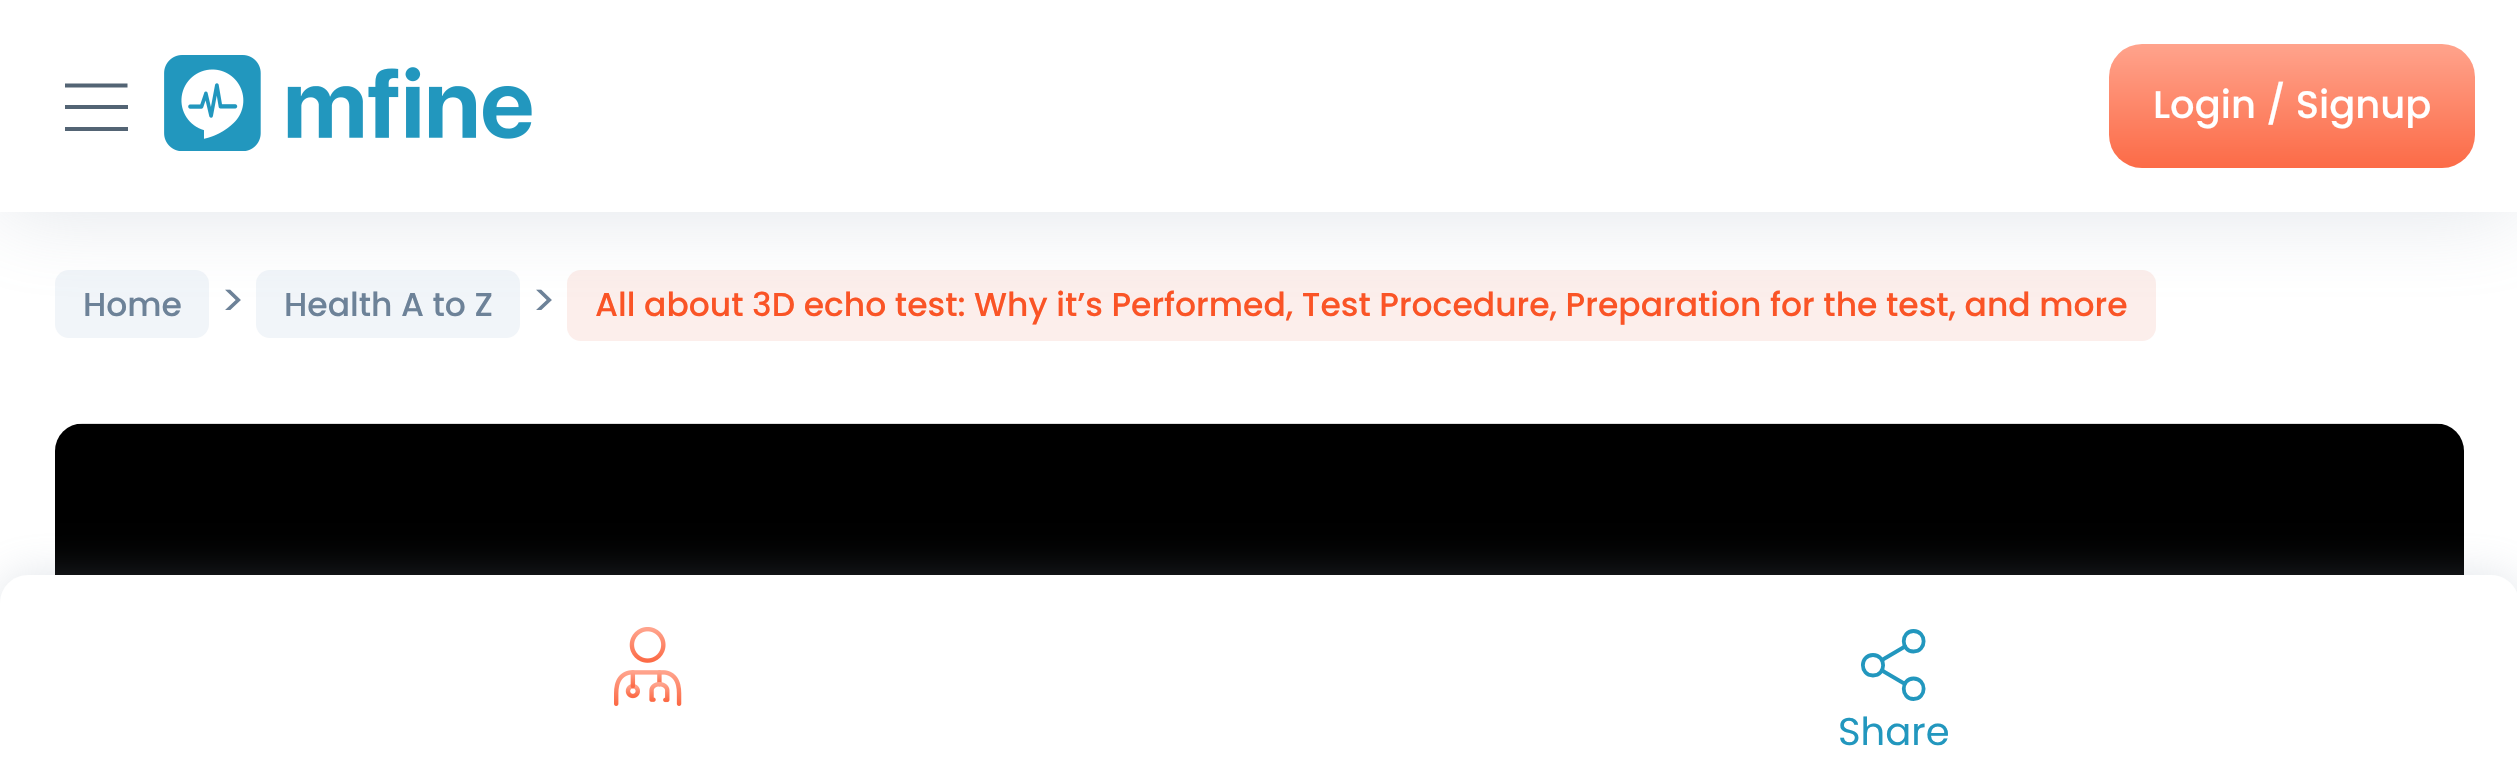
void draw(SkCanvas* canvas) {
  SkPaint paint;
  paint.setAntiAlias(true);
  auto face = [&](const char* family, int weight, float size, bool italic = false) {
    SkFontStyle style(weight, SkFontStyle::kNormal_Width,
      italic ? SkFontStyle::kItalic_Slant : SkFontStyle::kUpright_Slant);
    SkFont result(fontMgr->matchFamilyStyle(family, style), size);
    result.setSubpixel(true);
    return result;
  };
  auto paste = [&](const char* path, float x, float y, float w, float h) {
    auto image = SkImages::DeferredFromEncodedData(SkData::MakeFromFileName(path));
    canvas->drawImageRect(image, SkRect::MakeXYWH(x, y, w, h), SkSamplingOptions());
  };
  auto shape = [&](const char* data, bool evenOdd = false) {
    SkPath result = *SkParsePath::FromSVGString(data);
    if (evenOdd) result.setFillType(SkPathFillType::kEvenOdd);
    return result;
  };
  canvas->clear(0xffffffff);
  paint.setColor(0xfff1f5f9);
  canvas->drawRoundRect(SkRect::MakeXYWH(55, 270, 154, 68), 14, 14, paint);
  canvas->drawRoundRect(SkRect::MakeXYWH(256, 270, 264, 68), 14, 14, paint);
  paint.setColor(0xfffceeeb);
  canvas->drawRoundRect(SkRect::MakeXYWH(567, 270, 1589, 71), 14, 14, paint);
  paint.setColor(0x408495a6);
  paint.setMaskFilter(SkMaskFilter::MakeBlur(kNormal_SkBlurStyle, 44));
  canvas->drawRect(SkRect::MakeXYWH(0, 0, 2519, 212), paint);
  paint.setMaskFilter(nullptr);
  paint.setColor(0xffffffff);
  canvas->drawRect(SkRect::MakeXYWH(0, 0, 2517, 212), paint);
  paint.setStroke(true);
  paint.setStrokeWidth(4.2f);
  paint.setColor(0xff536474);
  canvas->drawPath(shape("M65 85.5H127.5"), paint);
  paint.setStroke(false);
  canvas->drawRect(SkRect::MakeXYWH(65, 105, 63, 4), paint);
  canvas->drawRect(SkRect::MakeXYWH(65, 127, 63, 4), paint);
  paste("img/1.png", 164, 55, 368, 96);
  {
    const SkColor colors[] = {0xffffa38c, 0xfffc6b47};
    const float stops[] = {0, 1};
    const SkPoint ends[] = {{2292, 44}, {2292, 168}};
    paint.setShader(SkGradientShader::MakeLinear(ends, colors, stops, 2, SkTileMode::kClamp));
    paint.setAlpha(255);
  }
  canvas->drawRoundRect(SkRect::MakeXYWH(2109, 44, 366, 124), 33, 33, paint);
  paste("img/2.png", 55, 423, 2409, 152);
  paint.setShader(nullptr);
  paint.setColor(0x408495a6);
  paint.setMaskFilter(SkMaskFilter::MakeBlur(kNormal_SkBlurStyle, 22));
  canvas->drawRoundRect(SkRect::MakeXYWH(0, 575, 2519, 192), 28, 28, paint);
  paint.setMaskFilter(nullptr);
  paint.setColor(0xffffffff);
  canvas->drawPath(shape("M28 575H2491C2506.5 575 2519 587.5 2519 603V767H0V603C0 587.5 12.5 575 28 575Z"), paint);
  paste("img/3.png", 614, 627, 68, 79);
  paint.setStroke(true);
  paint.setStrokeWidth(3.8f);
  paint.setStrokeCap(SkPaint::kRound_Cap);
  paint.setStrokeJoin(SkPaint::kRound_Join);
  paint.setColor(0xff2297be);
  canvas->drawPath(shape("M1913.5 651.5C1927 651.5 1927 631 1913.5 631C1900.5 631 1900.5 651.5 1913.5 651.5Z"), paint);
  canvas->drawPath(shape("M1873 675.5C1886.5 675.5 1886.5 655 1873 655C1859.5 655 1859.5 675.5 1873 675.5Z"), paint);
  canvas->drawPath(shape("M1913.5 699C1927 699 1927 678.5 1913.5 678.5C1900.5 678.5 1900.5 699 1913.5 699ZM1882 670.5L1905 684M1905 646.5L1882 660"), paint);
  auto f0 = face("Poppins", 500, 38.5f);
  paint.setStroke(false);
  paint.setColor(0xffffffff);
  canvas->drawString("Login / Signup", 2153, 118, f0, paint);
  auto f1 = face("Poppins", 500, 33);
  paint.setColor(0xff6d8298);
  canvas->drawString("Home", 83, 316, f1, paint);
  auto f2 = face("Poppins", 400, 44);
  canvas->drawString(">", 221, 316, f2, paint);
  canvas->drawString("Health A to Z", 284, 316, f1, paint);
  canvas->drawString(">", 532, 316, f2, paint);
  paint.setColor(0xfffa5426);
  canvas->drawString("All about 3D echo test: Why it’s Performed, Test Procedure, Preparation for the test, and more", 595, 316, f1, paint);
  auto f3 = face("Poppins", 400, 38.5f);
  paint.setColor(0xff2297be);
  canvas->drawString("Share", 1838, 745, f3, paint);
}
